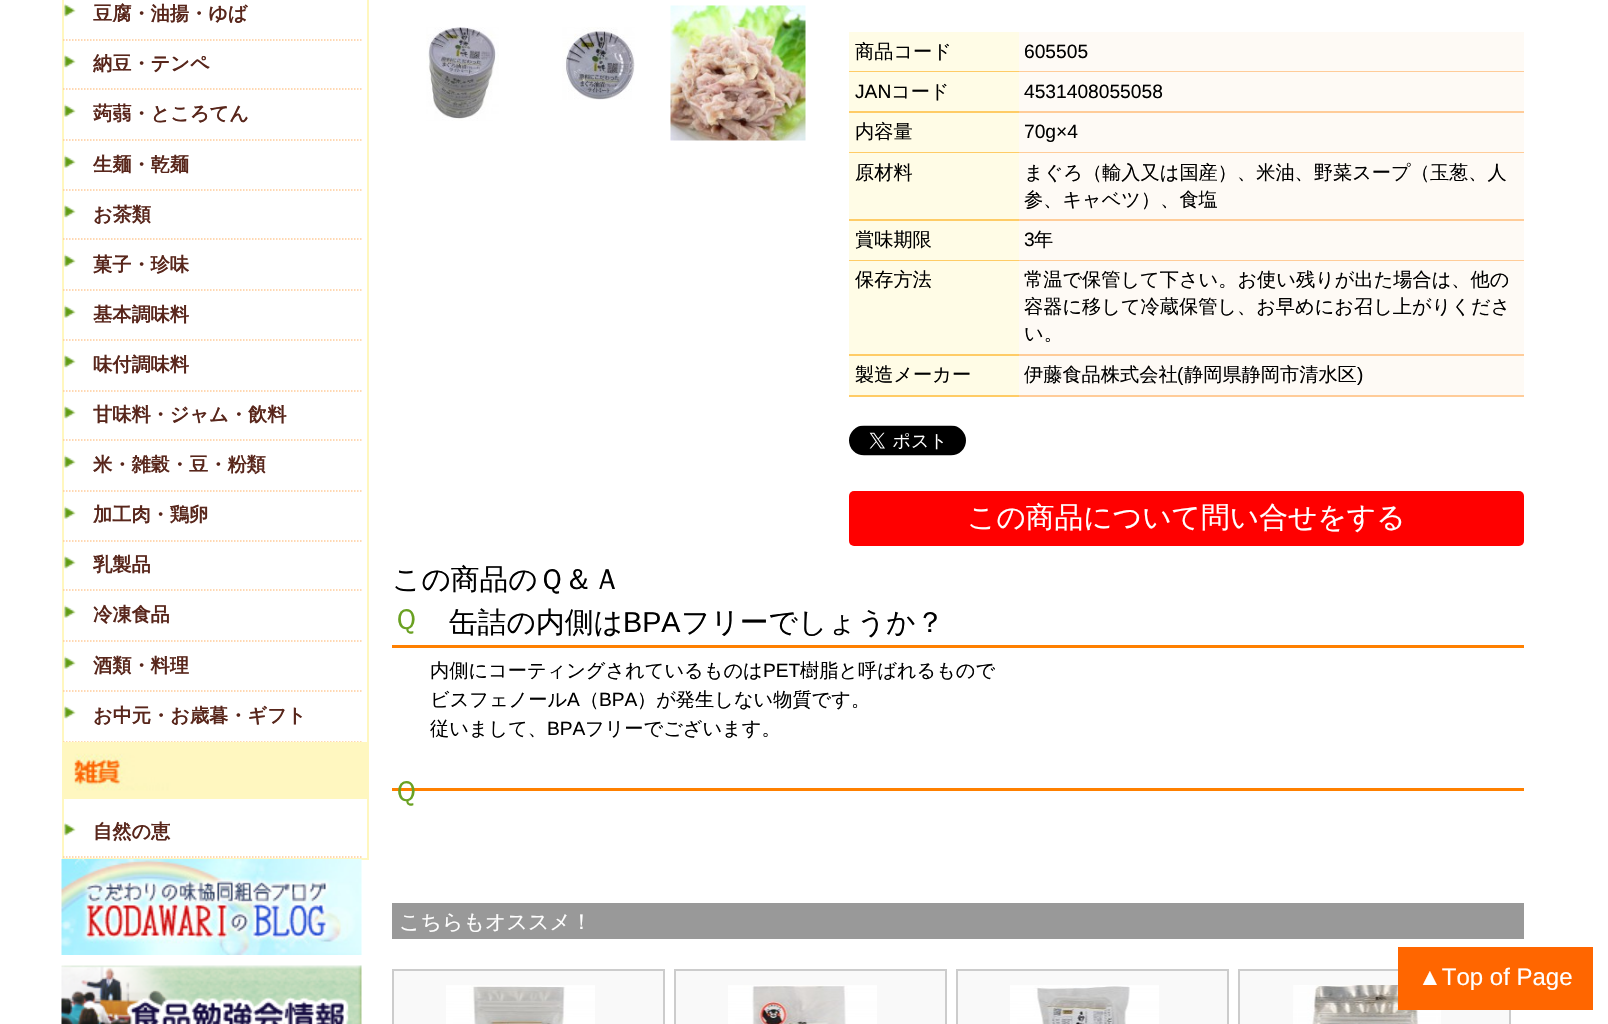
void draw(SkCanvas* canvas) {
  SkPaint paint;
  paint.setAntiAlias(true);
  auto face = [&](const char* family, int weight, float size, bool italic = false) {
    SkFontStyle style(weight, SkFontStyle::kNormal_Width,
      italic ? SkFontStyle::kItalic_Slant : SkFontStyle::kUpright_Slant);
    SkFont result(fontMgr->matchFamilyStyle(family, style), size);
    result.setSubpixel(true);
    return result;
  };
  auto paste = [&](const char* path, float x, float y, float w, float h) {
    auto image = SkImages::DeferredFromEncodedData(SkData::MakeFromFileName(path));
    canvas->drawImageRect(image, SkRect::MakeXYWH(x, y, w, h), SkSamplingOptions());
  };
  auto shape = [&](const char* data, bool evenOdd = false) {
    SkPath result = *SkParsePath::FromSVGString(data);
    if (evenOdd) result.setFillType(SkPathFillType::kEvenOdd);
    return result;
  };
  canvas->clear(0xffffffff);
  paint.setStroke(true);
  paint.setStrokeWidth(2);
  paint.setColor(0xfffff7bf);
  canvas->drawRect(SkRect::MakeXYWH(63, -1, 305, 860), paint);
  paste("img/1.png", 64, 3, 12, 14);
  paint.setStrokeWidth(1.5f);
  paint.setColor(0xffffcc99);
  paint.setPathEffect(SkDashPathEffect::Make({{1.5f, 1.5f}}, 0));
  canvas->drawPath(shape("M63 40H363"), paint);
  paint.setPathEffect(nullptr);
  paste("img/1.png", 64, 54, 12, 14);
  paint.setPathEffect(SkDashPathEffect::Make({{1.5f, 1.5f}}, 0));
  canvas->drawPath(shape("M63 89H363"), paint);
  paint.setPathEffect(nullptr);
  paste("img/2.png", 64, 104, 12, 13);
  paint.setPathEffect(SkDashPathEffect::Make({{1.5f, 1.5f}}, 0));
  canvas->drawPath(shape("M63 140H363"), paint);
  paint.setPathEffect(nullptr);
  paste("img/2.png", 64, 155, 12, 13);
  paint.setPathEffect(SkDashPathEffect::Make({{1.5f, 1.5f}}, 0));
  canvas->drawPath(shape("M63 190H363"), paint);
  paint.setPathEffect(nullptr);
  paste("img/1.png", 64, 204, 12, 14);
  paint.setPathEffect(SkDashPathEffect::Make({{1.5f, 1.5f}}, 0));
  canvas->drawPath(shape("M63 239H363"), paint);
  paint.setPathEffect(nullptr);
  paste("img/2.png", 64, 254, 12, 13);
  paint.setPathEffect(SkDashPathEffect::Make({{1.5f, 1.5f}}, 0));
  canvas->drawPath(shape("M63 290H363"), paint);
  paint.setPathEffect(nullptr);
  paste("img/2.png", 64, 305, 12, 13);
  paint.setPathEffect(SkDashPathEffect::Make({{1.5f, 1.5f}}, 0));
  canvas->drawPath(shape("M63 340H363"), paint);
  paint.setPathEffect(nullptr);
  paste("img/1.png", 64, 354, 12, 14);
  paint.setPathEffect(SkDashPathEffect::Make({{1.5f, 1.5f}}, 0));
  canvas->drawPath(shape("M63 391H363"), paint);
  paint.setPathEffect(nullptr);
  paste("img/1.png", 64, 405, 12, 14);
  paint.setPathEffect(SkDashPathEffect::Make({{1.5f, 1.5f}}, 0));
  canvas->drawPath(shape("M63 440H363"), paint);
  paint.setPathEffect(nullptr);
  paste("img/2.png", 64, 455, 12, 13);
  paint.setPathEffect(SkDashPathEffect::Make({{1.5f, 1.5f}}, 0));
  canvas->drawPath(shape("M63 491H363"), paint);
  paint.setPathEffect(nullptr);
  paste("img/2.png", 64, 506, 12, 13);
  paint.setPathEffect(SkDashPathEffect::Make({{1.5f, 1.5f}}, 0));
  canvas->drawPath(shape("M63 541H363"), paint);
  paint.setPathEffect(nullptr);
  paste("img/1.png", 64, 555, 12, 14);
  paint.setPathEffect(SkDashPathEffect::Make({{1.5f, 1.5f}}, 0));
  canvas->drawPath(shape("M63 590H363"), paint);
  paint.setPathEffect(nullptr);
  paste("img/2.png", 64, 605, 12, 13);
  paint.setPathEffect(SkDashPathEffect::Make({{1.5f, 1.5f}}, 0));
  canvas->drawPath(shape("M63 641H363"), paint);
  paint.setPathEffect(nullptr);
  paste("img/2.png", 64, 656, 12, 13);
  paint.setPathEffect(SkDashPathEffect::Make({{1.5f, 1.5f}}, 0));
  canvas->drawPath(shape("M63 691H363"), paint);
  paint.setPathEffect(nullptr);
  paste("img/1.png", 64, 705, 12, 14);
  paint.setPathEffect(SkDashPathEffect::Make({{1.5f, 1.5f}}, 0));
  canvas->drawPath(shape("M63 742H363"), paint);
  paint.setPathEffect(nullptr);
  paste("img/3.png", 63, 742, 304, 57);
  paste("img/1.png", 64, 822, 12, 14);
  paint.setPathEffect(SkDashPathEffect::Make({{1.5f, 1.5f}}, 0));
  canvas->drawPath(shape("M63 857H363"), paint);
  paint.setPathEffect(nullptr);
  paste("img/4.png", 61, 859, 301, 96);
  paste("img/5.png", 61, 965, 301, 59);
  paste("img/6.png", 426, 27, 73, 94);
  paste("img/7.png", 562, 27, 73, 73);
  paste("img/8.png", 670, 5, 136, 136);
  paint.setStroke(false);
  {
    const struct { float x, y, w, h; SkColor color; } items[] = {
      {849, 32, 170, 39, 0xfffffce6},
      {849, 71, 170, 1, 0xffffcc66},
      {1019, 32, 505, 39, 0xfffefaf5},
      {1019, 71, 505, 1, 0xffffcc99},
      {849, 72, 170, 39, 0xfffffce6},
      {849, 111, 170, 2, 0xffffcc66},
      {1019, 72, 505, 39, 0xfffefaf5},
      {1019, 111, 505, 2, 0xffffcc99},
      {849, 113, 170, 39, 0xfffffce6},
      {849, 152, 170, 1, 0xffffcc66},
      {1019, 113, 505, 39, 0xfffefaf5},
      {1019, 152, 505, 1, 0xffffcc99},
      {849, 153, 170, 66, 0xfffffce6},
      {849, 219, 170, 2, 0xffffcc66},
      {1019, 153, 505, 66, 0xfffefaf5},
      {1019, 219, 505, 2, 0xffffcc99},
      {849, 221, 170, 39, 0xfffffce6},
      {849, 260, 170, 1, 0xffffcc66},
      {1019, 221, 505, 39, 0xfffefaf5},
      {1019, 260, 505, 1, 0xffffcc99},
      {849, 261, 170, 93, 0xfffffce6},
      {849, 354, 170, 2, 0xffffcc66},
      {1019, 261, 505, 93, 0xfffefaf5},
      {1019, 354, 505, 2, 0xffffcc99},
      {849, 356, 170, 39, 0xfffffce6},
      {849, 395, 170, 2, 0xffffcc66},
      {1019, 356, 505, 39, 0xfffefaf5},
      {1019, 395, 505, 2, 0xffffcc99},
    };
    for (auto [x, y, w, h, color] : items) {
      paint.setColor(color);
      canvas->drawRect(SkRect::MakeXYWH(x, y, w, h), paint);
    }
  }
  paste("img/9.png", 849, 425, 117, 31);
  paint.setColor(0xffff0000);
  canvas->drawRoundRect(SkRect::MakeXYWH(849, 491, 675, 55), 5, 5, paint);
  {
    const struct { float x, y, w, h; SkColor color; } items[] = {
      {392, 645, 1132, 3, 0xffff8000},
      {392, 788, 1132, 3, 0xffff8000},
      {392, 903, 1132, 36, 0xff999999},
    };
    for (auto [x, y, w, h, color] : items) {
      paint.setColor(color);
      canvas->drawRect(SkRect::MakeXYWH(x, y, w, h), paint);
    }
  }
  paint.setColor(0xfff9f9f9);
  canvas->drawRect(SkRect::MakeXYWH(393, 970, 271, 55), paint);
  paint.setStroke(true);
  paint.setStrokeWidth(2);
  paint.setColor(0xffcccccc);
  canvas->drawRect(SkRect::MakeXYWH(393, 970, 271, 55), paint);
  paste("img/10.png", 446, 985, 149, 39);
  paint.setStroke(false);
  paint.setColor(0xfff9f9f9);
  canvas->drawRect(SkRect::MakeXYWH(675, 970, 271, 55), paint);
  paint.setStroke(true);
  paint.setColor(0xffcccccc);
  canvas->drawRect(SkRect::MakeXYWH(675, 970, 271, 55), paint);
  paste("img/11.png", 728, 985, 149, 39);
  paint.setStroke(false);
  paint.setColor(0xfff9f9f9);
  canvas->drawRect(SkRect::MakeXYWH(957, 970, 271, 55), paint);
  paint.setStroke(true);
  paint.setColor(0xffcccccc);
  canvas->drawRect(SkRect::MakeXYWH(957, 970, 271, 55), paint);
  paste("img/12.png", 1010, 985, 149, 39);
  paint.setStroke(false);
  paint.setColor(0xfff9f9f9);
  canvas->drawRect(SkRect::MakeXYWH(1239, 970, 271, 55), paint);
  paint.setStroke(true);
  paint.setColor(0xffcccccc);
  canvas->drawRect(SkRect::MakeXYWH(1239, 970, 271, 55), paint);
  paste("img/13.png", 1293, 985, 148, 39);
  paint.setStroke(false);
  paint.setColor(0xffff6600);
  canvas->drawRect(SkRect::MakeXYWH(1398, 947, 195, 63), paint);
  auto f0 = face("WenQuanYi Zen Hei", 700, 19.2f);
  paint.setColor(0xff58261b);
  {
    const struct { const char* s; float x, y; } items[] = {
      {"豆腐・油揚・ゆば", 93, 20},
      {"納豆・テンペ", 93, 70},
      {"蒟蒻・ところてん", 93, 120},
      {"生麺・乾麺", 93, 171},
      {"お茶類", 93, 221},
      {"菓子・珍味", 93, 271},
      {"基本調味料", 93, 321},
      {"味付調味料", 93, 371},
      {"甘味料・ジャム・飲料", 93, 421},
      {"米・雑穀・豆・粉類", 93, 471},
      {"加工肉・鶏卵", 93, 521},
      {"乳製品", 93, 571},
      {"冷凍食品", 93, 621},
      {"酒類・料理", 93, 672},
      {"お中元・お歳暮・ギフト", 93, 722},
      {"自然の恵", 93, 838},
    };
    for (auto [s, x, y] : items) {
      canvas->drawString(s, x, y, f0, paint);
    }
  }
  auto f1 = face("WenQuanYi Zen Hei", 500, 19.2f);
  paint.setColor(0xff000000);
  canvas->drawString("商品コード", 855, 58, f1, paint);
  auto f2 = face("Liberation Sans", 400, 19.2f);
  canvas->drawString("605505", 1024, 58, f2, paint);
  canvas->drawString("JAN", 855, 98, f2, paint);
  canvas->drawString("コード", 891, 98, f1, paint);
  canvas->drawString("4531408055058", 1024, 98, f2, paint);
  canvas->drawString("内容量", 855, 138, f1, paint);
  canvas->drawString("70g×4", 1024, 138, f2, paint);
  {
    const struct { const char* s; float x, y; } items[] = {
      {"原材料", 855, 179},
      {"まぐろ（輸入又は国産）、米油、野菜スープ（玉葱、人", 1024, 179},
      {"参、キャベツ）、食塩", 1024, 206},
      {"賞味期限", 855, 246},
    };
    for (auto [s, x, y] : items) {
      canvas->drawString(s, x, y, f1, paint);
    }
  }
  canvas->drawString("3", 1024, 246, f2, paint);
  {
    const struct { const char* s; float x, y; } items[] = {
      {"年", 1034, 246},
      {"保存方法", 855, 286},
      {"常温で保管して下さい。お使い残りが出た場合は、他の", 1024, 286},
      {"容器に移して冷蔵保管し、お早めにお召し上がりくださ", 1024, 313},
      {"い。", 1024, 340},
      {"製造メーカー", 855, 381},
      {"伊藤食品株式会社", 1024, 381},
    };
    for (auto [s, x, y] : items) {
      canvas->drawString(s, x, y, f1, paint);
    }
  }
  canvas->drawString("(", 1177, 381, f2, paint);
  canvas->drawString("静岡県静岡市清水区", 1184, 381, f1, paint);
  canvas->drawString(")", 1357, 381, f2, paint);
  auto f3 = face("WenQuanYi Zen Hei", 500, 28.75f);
  paint.setColor(0xffffffff);
  canvas->drawString("この商品について問い合せをする", 967, 527, f3, paint);
  paint.setColor(0xff000000);
  canvas->drawString("この商品のＱ＆Ａ", 392, 589, f3, paint);
  paint.setColor(0xff6aa122);
  canvas->drawString("Ｑ", 392, 629, f3, paint);
  paint.setColor(0xff000000);
  canvas->drawString("缶詰の内側は", 449, 632, f3, paint);
  auto f4 = face("Liberation Sans", 400, 28.75f);
  canvas->drawString("BPA", 623, 632, f4, paint);
  canvas->drawString("フリーでしょうか？", 681, 632, f3, paint);
  canvas->drawString("内側にコーティングされているものは", 430, 677, f1, paint);
  canvas->drawString("PET", 763, 677, f2, paint);
  canvas->drawString("樹脂と呼ばれるもので", 800, 677, f1, paint);
  canvas->drawString("ビスフェノール", 430, 706, f1, paint);
  canvas->drawString("A", 567, 706, f2, paint);
  canvas->drawString("（", 580, 706, f1, paint);
  canvas->drawString("BPA", 599, 706, f2, paint);
  canvas->drawString("）が発生しない物質です。", 637, 706, f1, paint);
  canvas->drawString("従いまして、", 430, 735, f1, paint);
  canvas->drawString("BPA", 547, 735, f2, paint);
  canvas->drawString("フリーでございます。", 585, 735, f1, paint);
  paint.setColor(0xff6aa122);
  canvas->drawString("Ｑ", 392, 801, f3, paint);
  auto f5 = face("WenQuanYi Zen Hei", 500, 21);
  paint.setColor(0xffffffff);
  canvas->drawString("こちらもオススメ！", 399, 929, f5, paint);
  auto f6 = face("Liberation Sans", 400, 24);
  canvas->drawString("▲Top of Page", 1418, 985, f6, paint);
}
